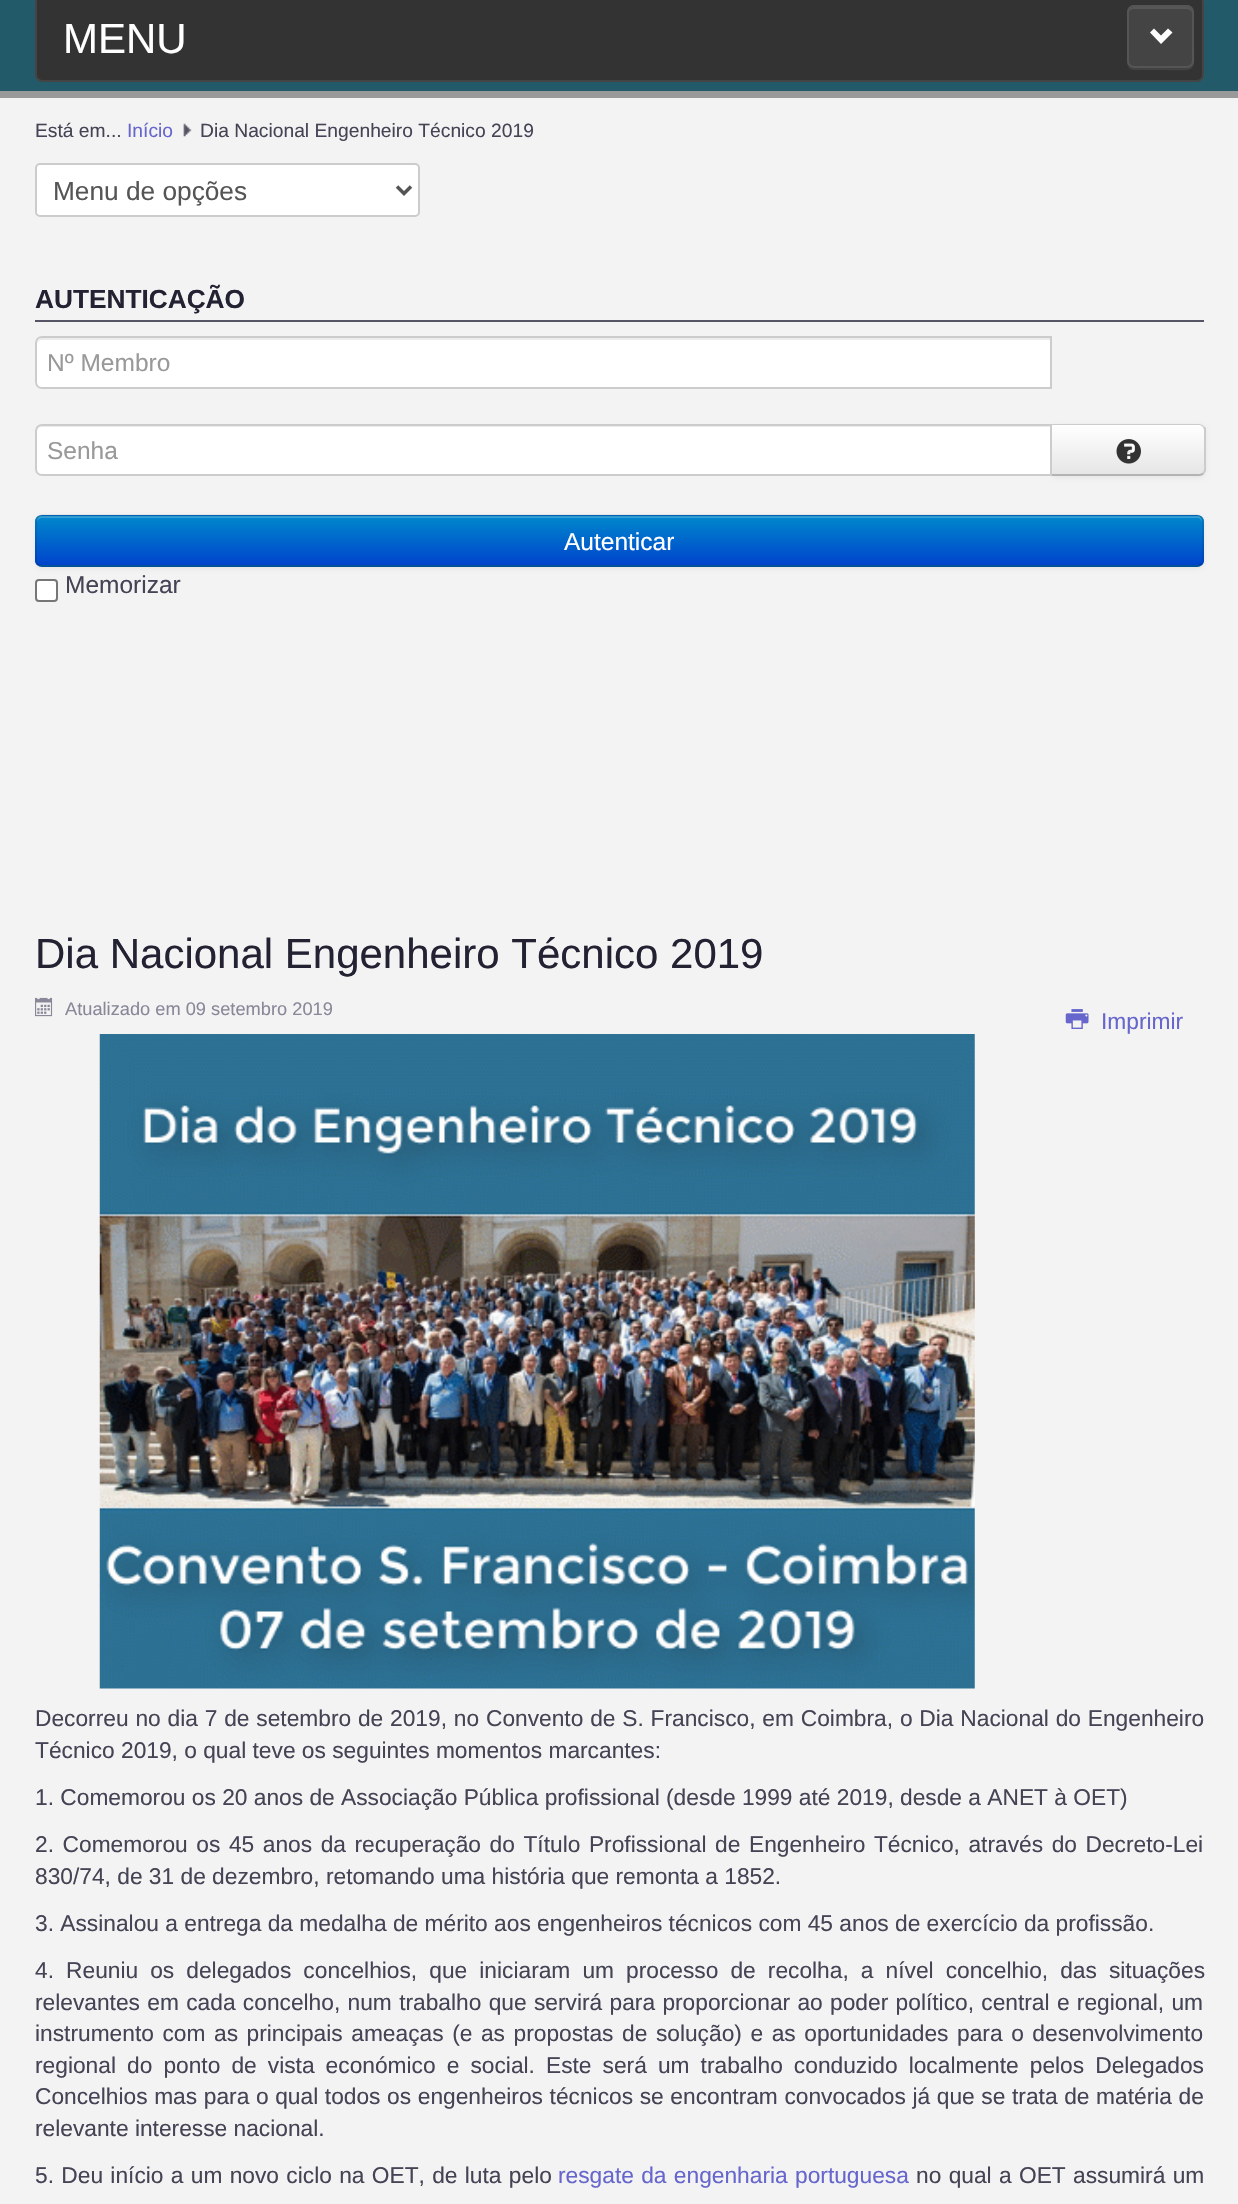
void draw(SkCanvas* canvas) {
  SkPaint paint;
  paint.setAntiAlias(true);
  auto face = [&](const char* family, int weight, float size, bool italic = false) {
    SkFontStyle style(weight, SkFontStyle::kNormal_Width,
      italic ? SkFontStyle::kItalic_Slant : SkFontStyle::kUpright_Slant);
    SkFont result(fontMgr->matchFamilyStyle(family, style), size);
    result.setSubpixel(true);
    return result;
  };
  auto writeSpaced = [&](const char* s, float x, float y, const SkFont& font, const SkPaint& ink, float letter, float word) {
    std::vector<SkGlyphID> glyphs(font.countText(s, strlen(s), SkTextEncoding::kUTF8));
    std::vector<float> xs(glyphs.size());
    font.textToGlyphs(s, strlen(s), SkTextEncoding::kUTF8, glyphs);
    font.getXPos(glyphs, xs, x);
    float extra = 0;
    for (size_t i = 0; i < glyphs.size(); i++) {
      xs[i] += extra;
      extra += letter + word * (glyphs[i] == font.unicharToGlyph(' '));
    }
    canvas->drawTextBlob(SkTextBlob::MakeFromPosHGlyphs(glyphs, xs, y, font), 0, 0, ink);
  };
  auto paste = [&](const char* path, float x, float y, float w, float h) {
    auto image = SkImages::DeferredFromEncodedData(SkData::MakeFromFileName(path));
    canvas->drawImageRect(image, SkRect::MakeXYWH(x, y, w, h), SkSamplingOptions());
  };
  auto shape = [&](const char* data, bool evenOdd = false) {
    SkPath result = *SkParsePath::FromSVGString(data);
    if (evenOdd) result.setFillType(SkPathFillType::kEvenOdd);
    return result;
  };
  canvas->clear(0xff235a6a);
  paint.setColor(0xff999999);
  canvas->drawRect(SkRect::MakeXYWH(0, 91, 1238, 7), paint);
  paint.setColor(0xff333333);
  canvas->drawRoundRect(SkRect::MakeXYWH(36, -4, 1167, 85), 6, 6, paint);
  paint.setStroke(true);
  paint.setStrokeWidth(2);
  paint.setColor(0xff444444);
  canvas->drawRoundRect(SkRect::MakeXYWH(36, -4, 1167, 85), 6, 6, paint);
  paint.setStroke(false);
  paint.setColor(0xff424242);
  canvas->drawPath(shape("M1127 61C1127 72 1135 70 1143 70H1160C1199 70 1194 76 1194 38V22C1194 20 1195 14 1193 11L1194 45C1194 71 1196 68 1169 68H1133C1129 67 1127 65 1127 61Z"), paint);
  paint.setColor(0xff444444);
  canvas->drawRoundRect(SkRect::MakeXYWH(1127, 5, 67, 63), 7, 7, paint);
  paint.setColor(0xff575757);
  canvas->drawPath(shape("M1134 9H1186C1189 9 1192 11 1192 14C1192 5 1186 7 1178 7H1143C1135 7 1129 5 1129 14C1129 11 1131 9 1134 9Z"), paint);
  paint.setStroke(true);
  paint.setColor(0xff555555);
  canvas->drawRoundRect(SkRect::MakeXYWH(1128, 6, 65, 61), 6, 6, paint);
  paint.setStroke(false);
  paint.setColor(0xffffffff);
  canvas->drawPath(shape("M1172.5 32.5L1161 44L1150 32.5L1154 28.5L1161 35.5L1168 28.5Z"), paint);
  paint.setColor(0xfff3f3f3);
  canvas->drawRect(SkRect::MakeXYWH(0, 100, 1238, 2104), paint);
  paint.setColor(0xfff2f2f2);
  canvas->drawRect(SkRect::MakeXYWH(0, 98, 1238, 2), paint);
  paste("img/1.png", 183, 123, 9, 14);
  paint.setColor(0xffffffff);
  canvas->drawRoundRect(SkRect::MakeXYWH(36, 164, 383, 52), 4, 4, paint);
  paint.setStroke(true);
  paint.setColor(0xffcccccc);
  canvas->drawRoundRect(SkRect::MakeXYWH(36, 164, 383, 52), 4, 4, paint);
  paint.setStrokeWidth(3.5f);
  paint.setColor(0xff555555);
  canvas->drawPath(shape("M397 186.5L404 193.5L411 186.5"), paint);
  paint.setStroke(false);
  paint.setColor(0xff555566);
  canvas->drawRect(SkRect::MakeXYWH(35, 320, 1169, 2), paint);
  paint.setColor(0xffffffff);
  canvas->drawPath(shape("M42 336H1052V389H42C38 389 35 386 35 382V343C35 339 38 336 42 336Z"), paint);
  paint.setColor(0xffececec);
  canvas->drawPath(shape("M42 340H1050V338H42C39 338 37 340 37 343V345C37 342 39 340 42 340Z"), paint);
  paint.setStroke(true);
  paint.setStrokeWidth(2);
  paint.setColor(0xffcccccc);
  canvas->drawPath(shape("M42 337H1051V388H42C38.5 388 36 385.5 36 382V343C36 339.5 38.5 337 42 337Z"), paint);
  paint.setStroke(false);
  paint.setColor(0x0d000000);
  paint.setMaskFilter(SkMaskFilter::MakeBlur(kNormal_SkBlurStyle, 2));
  canvas->drawRoundRect(SkRect::MakeXYWH(1050, 425, 156, 53), 7, 7, paint);
  paint.setMaskFilter(nullptr);
  paint.setColor(0xfff5f5f5);
  canvas->drawPath(shape("M1050 424H1199C1203 424 1206 427 1206 431V469C1206 473 1203 476 1199 476H1050Z"), paint);
  canvas->save();
  canvas->clipPath(shape("M1050 424H1199C1203 424 1206 427 1206 431V469C1206 473 1203 476 1199 476H1050Z"), true);
  {
    const SkColor colors[] = {0xffffffff, 0xffe6e6e6};
    const float stops[] = {0, 1};
    const SkPoint ends[] = {{1128, 425}, {1128, 474}};
    paint.setShader(SkGradientShader::MakeLinear(ends, colors, stops, 2, SkTileMode::kClamp));
    paint.setAlpha(255);
  }
  canvas->drawRect(SkRect::MakeXYWH(1052, 425, 154, 49), paint);
  canvas->restore();
  paint.setShader(nullptr);
  paint.setColor(0xffcccccc);
  canvas->drawPath(shape("M1052 425H1200L1203 427L1204 426C1202 425 1201 424 1199 424H1050L1052 426Z"), paint);
  canvas->drawPath(shape("M1204 426L1206 428V471L1204 474L1202 473C1203 472 1204 471 1204 469V430C1204 429 1203 428 1203 427Z"), paint);
  paint.setColor(0xffb3b3b3);
  canvas->drawPath(shape("M1199 476C1201 476 1203 475 1204 474L1202 473L1200 474H1052L1050 476Z"), paint);
  paint.setColor(0xffffffff);
  canvas->drawPath(shape("M42 424H1052V476H42C38 476 35 473 35 469V431C35 427 38 424 42 424Z"), paint);
  paint.setColor(0xffececec);
  canvas->drawPath(shape("M42 427H1050V425H42C39 425 37 427 37 430V432C37 429 39 427 42 427Z"), paint);
  paint.setStroke(true);
  paint.setColor(0xffcccccc);
  canvas->drawPath(shape("M42 425H1051V475H42C38.5 475 36 472.5 36 469V431C36 427.5 38.5 425 42 425Z"), paint);
  paste("img/2.png", 1118, 442, 22, 22);
  paste("img/3.png", 1116, 439, 25, 25);
  paint.setStroke(false);
  paint.setColor(0x0d000000);
  paint.setMaskFilter(SkMaskFilter::MakeBlur(kNormal_SkBlurStyle, 2));
  canvas->drawRoundRect(SkRect::MakeXYWH(35, 516, 1169, 53), 7, 7, paint);
  paint.setMaskFilter(nullptr);
  paint.setColor(0xff006dcc);
  canvas->drawRoundRect(SkRect::MakeXYWH(35, 515, 1169, 52), 7, 7, paint);
  canvas->save();
  canvas->clipPath(shape("M42 515H1197C1201 515 1204 518 1204 522V560C1204 564 1201 567 1197 567H42C38 567 35 564 35 560V522C35 518 38 515 42 515Z"), true);
  {
    const SkColor colors[] = {0xff0088cc, 0xff0044cc};
    const float stops[] = {0, 1};
    const SkPoint ends[] = {{620, 516}, {620, 565}};
    paint.setShader(SkGradientShader::MakeLinear(ends, colors, stops, 2, SkTileMode::kClamp));
    paint.setAlpha(255);
  }
  canvas->drawRect(SkRect::MakeXYWH(35, 516, 1169, 49), paint);
  canvas->restore();
  paint.setShader(nullptr);
  paint.setColor(0x33ffffff);
  canvas->drawPath(shape("M42 518H1197C1200 518 1202 520 1202 523V521C1202 518 1200 516 1197 516H42C39 516 37 518 37 521V523C37 520 39 518 42 518Z"), paint);
  paint.setStroke(true);
  paint.setStrokeWidth(1.8f);
  paint.setColor(0x40000000);
  canvas->drawPath(shape("M1201.5 564.5C1200 565.5 1198.5 566 1197 566H42C40.5 566 39 565.5 37.5 564.5"), paint);
  paint.setColor(0x1a000000);
  canvas->drawPath(shape("M37.5 564.5L36 561V528L36.5 519C37.5 517 39.5 515.5 42 515.5H1197C1199.5 515.5 1201.5 517 1202.5 519L1203 528V561L1201.5 564.5"), paint);
  paint.setStroke(false);
  paint.setColor(0xffffffff);
  canvas->drawRoundRect(SkRect::MakeXYWH(36, 580, 21, 21), 3, 3, paint);
  paint.setStroke(true);
  paint.setStrokeWidth(2);
  paint.setColor(0xff767676);
  canvas->drawRoundRect(SkRect::MakeXYWH(36, 580, 21, 21), 3, 3, paint);
  paste("img/4.png", 35, 997, 18, 20);
  paste("img/5.png", 1065, 1009, 24, 20);
  paste("img/6.png", 99, 1034, 876, 655);
  auto f0 = face("Liberation Sans", 400, 42);
  paint.setStroke(false);
  paint.setColor(0xffffffff);
  canvas->drawString("MENU", 63, 53, f0, paint);
  auto f1 = face("Liberation Sans", 400, 19.25f);
  paint.setColor(0xff444455);
  canvas->drawString("Está em...", 35, 137, f1, paint);
  paint.setColor(0xff6666cc);
  canvas->drawString("Início", 127, 137, f1, paint);
  paint.setColor(0xff444455);
  canvas->drawString("Dia Nacional Engenheiro Técnico 2019", 200, 137, f1, paint);
  auto f2 = face("Liberation Sans", 400, 26.25f);
  paint.setColor(0xff555555);
  canvas->drawString("Menu de opções", 53, 200, f2, paint);
  auto f3 = face("Liberation Sans", 700, 26.25f);
  paint.setColor(0xff222233);
  canvas->drawString("AUTENTICAÇÃO", 35, 308, f3, paint);
  auto f4 = face("Liberation Sans", 400, 24.5f);
  paint.setColor(0xff999999);
  canvas->drawString("Nº Membro", 47, 371, f4, paint);
  canvas->drawString("Senha", 47, 459, f4, paint);
  paint.setColor(0xffffffff);
  canvas->drawString("Autenticar", 564, 550, f4, paint);
  paint.setColor(0xff444455);
  canvas->drawString("Memorizar", 65, 593, f4, paint);
  paint.setColor(0xff222233);
  canvas->drawString("Dia Nacional Engenheiro Técnico 2019", 35, 968, f0, paint);
  auto f5 = face("Liberation Sans", 400, 18.25f);
  paint.setColor(0xff888899);
  canvas->drawString("Atualizado em 09 setembro 2019", 65, 1015, f5, paint);
  auto f6 = face("Liberation Sans", 400, 22.75f);
  paint.setColor(0xff6666cc);
  canvas->drawString("Imprimir", 1101, 1029, f6, paint);
  paint.setColor(0xff444455);
  writeSpaced("Decorreu no dia 7 de setembro de 2019, no Convento de S. Francisco, em Coimbra, o Dia Nacional do Engenheiro", 35, 1726, f6, paint, 0, 0.5f);
  canvas->drawString("Técnico 2019, o qual teve os seguintes momentos marcantes:", 35, 1758, f6, paint);
  canvas->drawString("1. Comemorou os 20 anos de Associação Pública profissional (desde 1999 até 2019, desde a ANET à OET)", 35, 1805, f6, paint);
  writeSpaced("2. Comemorou os 45 anos da recuperação do Título Profissional de Engenheiro Técnico, através do Decreto-Lei", 35, 1852, f6, paint, 0, 2.25f);
  canvas->drawString("830/74, de 31 de dezembro, retomando uma história que remonta a 1852.", 35, 1884, f6, paint);
  canvas->drawString("3. Assinalou a entrega da medalha de mérito aos engenheiros técnicos com 45 anos de exercício da profissão.", 35, 1931, f6, paint);
  writeSpaced("4. Reuniu os delegados concelhios, que iniciaram um processo de recolha, a nível concelhio, das situações", 35, 1978, f6, paint, 0, 5.75f);
  writeSpaced("relevantes em cada concelho, num trabalho que servirá para proporcionar ao poder político, central e regional, um", 35, 2010, f6, paint, 0, 1);
  writeSpaced("instrumento com as principais ameaças (e as propostas de solução) e as oportunidades para o desenvolvimento", 35, 2041, f6, paint, 0, 2.25f);
  writeSpaced("regional do ponto de vista económico e social. Este será um trabalho conduzido localmente pelos Delegados", 35, 2073, f6, paint, 0, 4.75f);
  writeSpaced("Concelhios mas para o qual todos os engenheiros técnicos se encontram convocados já que se trata de matéria de", 35, 2104, f6, paint, 0, 0.3f);
  canvas->drawString("relevante interesse nacional.", 35, 2136, f6, paint);
  writeSpaced("5. Deu início a um novo ciclo na OET, de luta pelo", 35, 2183, f6, paint, 0, 1);
  paint.setColor(0xff6666cc);
  writeSpaced("resgate da engenharia portuguesa", 558, 2183, f6, paint, 0, 1);
  paint.setColor(0xff444455);
  writeSpaced("no qual a OET assumirá um", 916, 2183, f6, paint, 0, 1);
}
